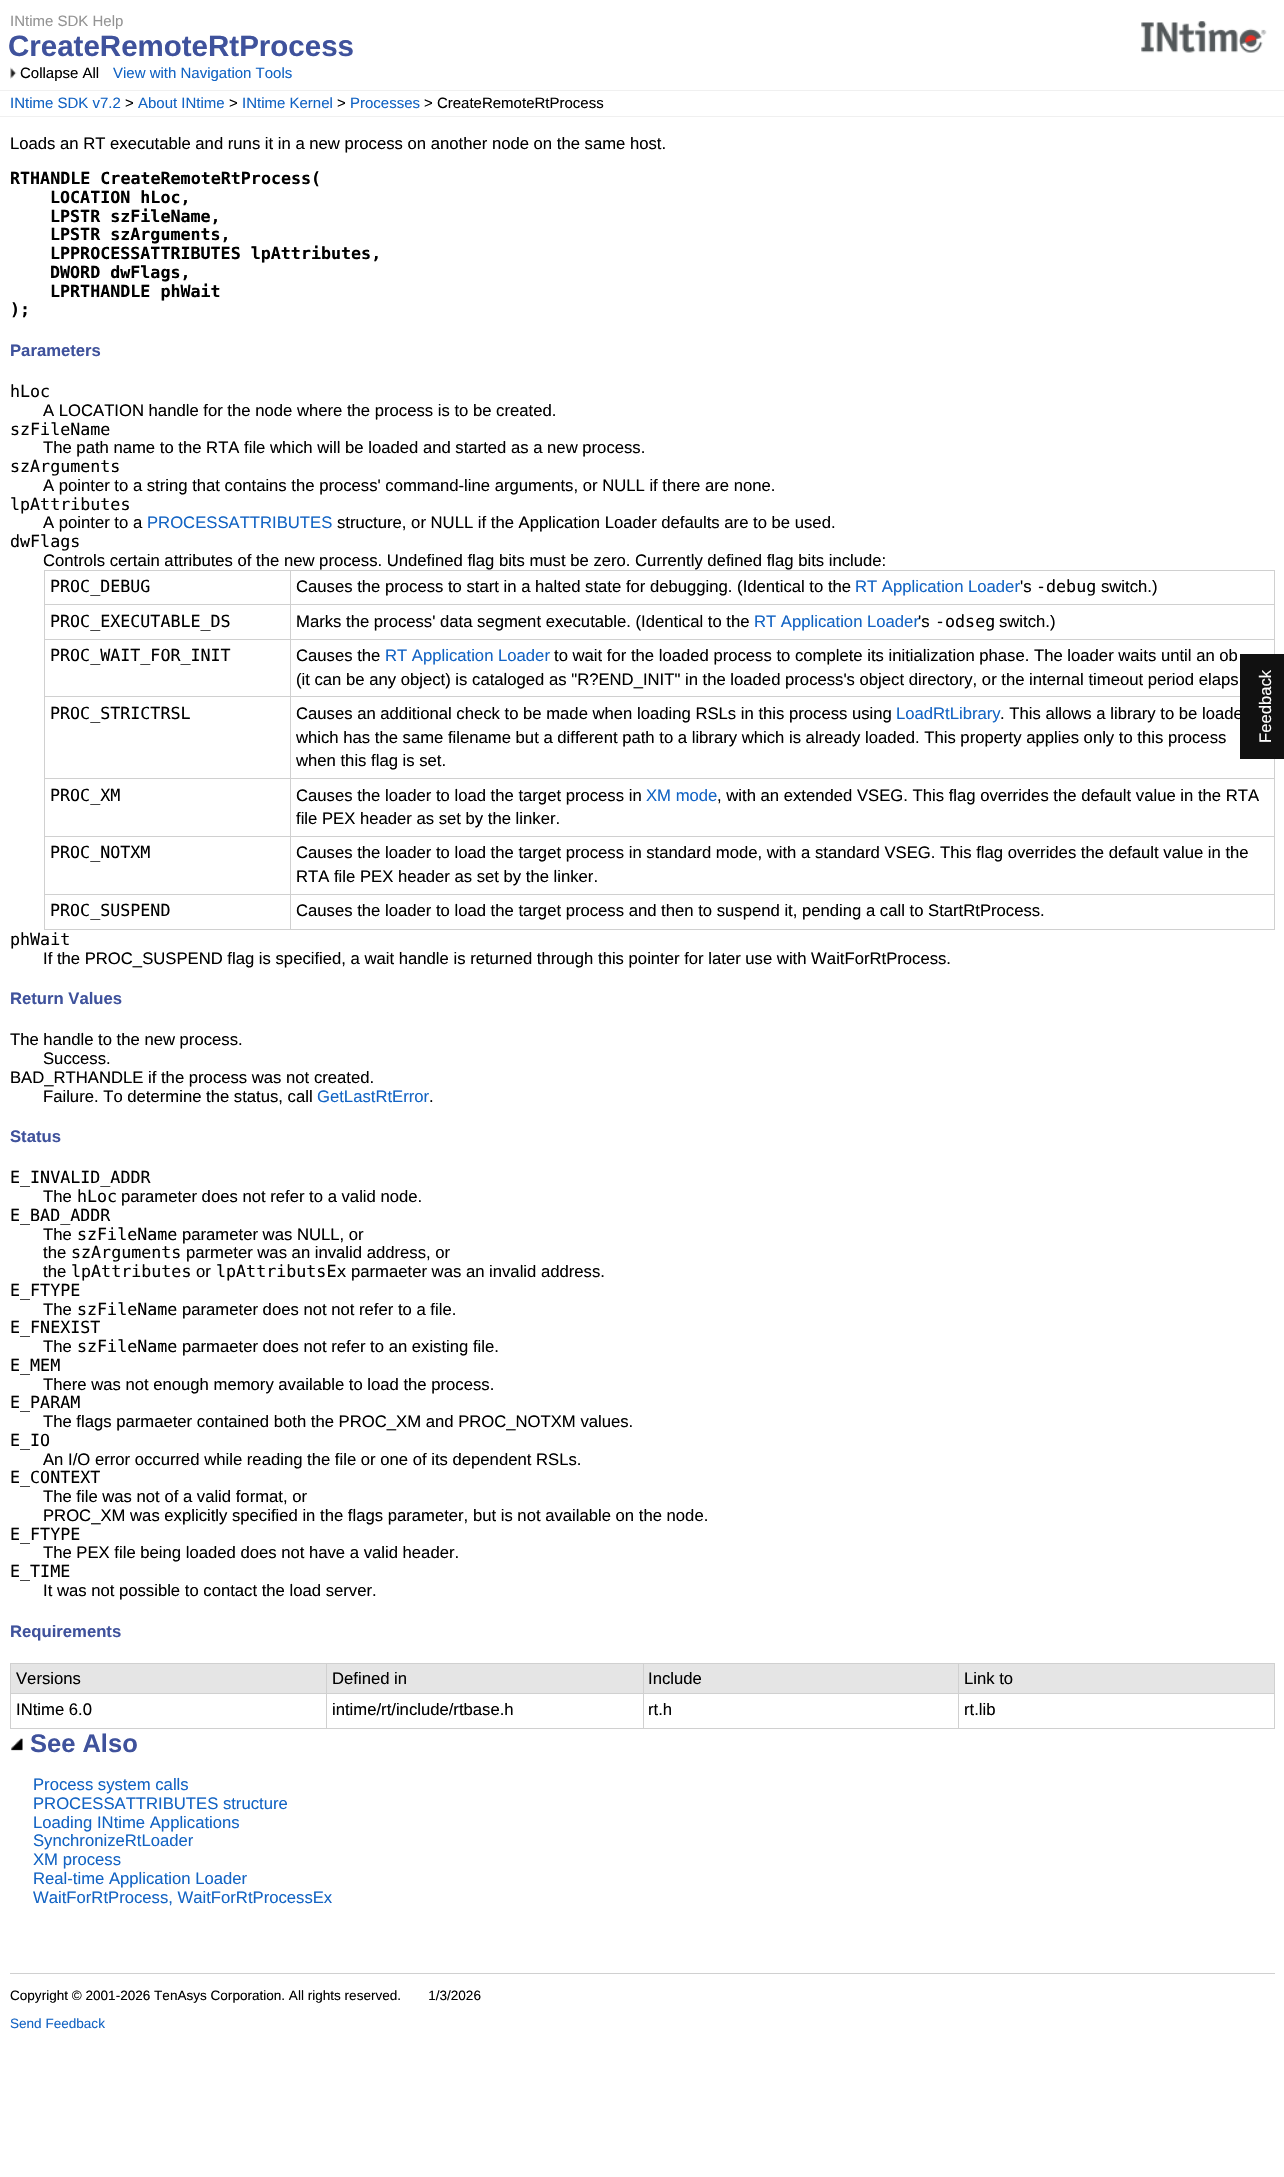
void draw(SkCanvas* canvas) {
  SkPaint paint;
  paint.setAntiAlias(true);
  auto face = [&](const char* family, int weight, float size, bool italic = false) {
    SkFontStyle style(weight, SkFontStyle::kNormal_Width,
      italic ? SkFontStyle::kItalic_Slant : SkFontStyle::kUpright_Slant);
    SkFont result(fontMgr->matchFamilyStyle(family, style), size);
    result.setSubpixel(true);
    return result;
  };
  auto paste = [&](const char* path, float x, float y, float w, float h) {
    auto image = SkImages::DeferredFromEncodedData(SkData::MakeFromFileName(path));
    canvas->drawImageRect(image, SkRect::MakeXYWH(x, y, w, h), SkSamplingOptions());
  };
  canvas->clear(0xffffffff);
  paste("img/1.png", 1141, 21, 126, 32);
  paste("img/2.png", 10, 67, 7, 12);
  {
    const struct { float x, y, w, h; SkColor color; } items[] = {
      {0, 90, 1284, 1, 0xfff0f0f0},
      {0, 116, 1284, 1, 0xfff0f0f0},
      {290, 570, 985, 1, 0xffd0d0d0},
      {290, 604, 985, 1, 0xffd0d0d0},
      {290, 639, 985, 1, 0xffd0d0d0},
      {290, 696, 950, 1, 0xffd0d0d0},
      {290, 778, 985, 1, 0xffd0d0d0},
      {290, 836, 985, 1, 0xffd0d0d0},
      {290, 894, 985, 1, 0xffd0d0d0},
      {1274, 894, 1, 36, 0xffd0d0d0},
      {290, 929, 985, 1, 0xffd0d0d0},
      {290, 894, 1, 36, 0xffd0d0d0},
      {44, 894, 247, 1, 0xffd0d0d0},
      {290, 836, 1, 59, 0xffd0d0d0},
      {44, 836, 247, 1, 0xffd0d0d0},
      {290, 778, 1, 60, 0xffd0d0d0},
      {44, 778, 247, 1, 0xffd0d0d0},
      {290, 696, 1, 83, 0xffd0d0d0},
      {44, 696, 247, 1, 0xffd0d0d0},
      {290, 639, 1, 59, 0xffd0d0d0},
      {44, 639, 247, 1, 0xffd0d0d0},
      {290, 604, 1, 36, 0xffd0d0d0},
      {44, 604, 247, 1, 0xffd0d0d0},
      {290, 570, 1, 35, 0xffd0d0d0},
      {44, 570, 247, 1, 0xffd0d0d0},
      {44, 929, 247, 1, 0xffd0d0d0},
      {44, 894, 1, 36, 0xffd0d0d0},
      {44, 836, 1, 59, 0xffd0d0d0},
      {44, 778, 1, 60, 0xffd0d0d0},
      {44, 696, 1, 83, 0xffd0d0d0},
      {44, 639, 1, 59, 0xffd0d0d0},
      {44, 604, 1, 36, 0xffd0d0d0},
      {44, 570, 1, 35, 0xffd0d0d0},
      {1274, 639, 1, 15, 0xffd0d0d0},
      {1274, 604, 1, 36, 0xffd0d0d0},
      {1274, 570, 1, 35, 0xffd0d0d0},
      {1274, 836, 1, 59, 0xffd0d0d0},
      {1274, 759, 1, 79, 0xffd0d0d0},
      {11, 1664, 315, 29, 0xffe5e5e5},
      {958, 1663, 317, 1, 0xffd0d0d0},
      {958, 1693, 317, 1, 0xffd0d0d0},
      {1274, 1693, 1, 36, 0xffd0d0d0},
      {958, 1728, 317, 1, 0xffd0d0d0},
      {958, 1693, 1, 36, 0xffd0d0d0},
      {643, 1693, 316, 1, 0xffd0d0d0},
      {958, 1663, 1, 31, 0xffd0d0d0},
      {643, 1663, 316, 1, 0xffd0d0d0},
      {643, 1728, 316, 1, 0xffd0d0d0},
      {643, 1693, 1, 36, 0xffd0d0d0},
      {326, 1693, 318, 1, 0xffd0d0d0},
      {643, 1663, 1, 31, 0xffd0d0d0},
      {326, 1663, 318, 1, 0xffd0d0d0},
      {326, 1728, 318, 1, 0xffd0d0d0},
      {326, 1693, 1, 36, 0xffd0d0d0},
      {10, 1693, 318, 1, 0xffd0d0d0},
      {326, 1663, 1, 31, 0xffd0d0d0},
      {10, 1663, 318, 1, 0xffd0d0d0},
      {10, 1728, 318, 1, 0xffd0d0d0},
      {10, 1693, 1, 36, 0xffd0d0d0},
      {10, 1663, 1, 31, 0xffd0d0d0},
      {327, 1664, 316, 29, 0xffe5e5e5},
      {644, 1664, 314, 29, 0xffe5e5e5},
      {959, 1664, 315, 29, 0xffe5e5e5},
      {1274, 1663, 1, 31, 0xffd0d0d0},
    };
    for (auto [x, y, w, h, color] : items) {
      paint.setColor(color);
      canvas->drawRect(SkRect::MakeXYWH(x, y, w, h), paint);
    }
  }
  paste("img/3.png", 11, 1738, 12, 13);
  canvas->drawRect(SkRect::MakeXYWH(10, 1973, 1265, 1), paint);
  auto f0 = face("Liberation Sans", 400, 15);
  paint.setColor(0xff949494);
  canvas->drawString("INtime SDK Help", 10, 26, f0, paint);
  auto f1 = face("Liberation Sans", 700, 29.5f);
  paint.setColor(0xff3f529c);
  canvas->drawString("CreateRemoteRtProcess", 8, 56, f1, paint);
  paint.setColor(0xff000000);
  canvas->drawString("Collapse All", 20, 78, f0, paint);
  paint.setColor(0xff1364c4);
  canvas->drawString("View with Navigation Tools", 113, 78, f0, paint);
  canvas->drawString("INtime SDK v7.2", 10, 108, f0, paint);
  paint.setColor(0xff000000);
  canvas->drawString(">", 125, 108, f0, paint);
  paint.setColor(0xff1364c4);
  canvas->drawString("About INtime", 138, 108, f0, paint);
  paint.setColor(0xff000000);
  canvas->drawString(">", 229, 108, f0, paint);
  paint.setColor(0xff1364c4);
  canvas->drawString("INtime Kernel", 242, 108, f0, paint);
  paint.setColor(0xff000000);
  canvas->drawString(">", 337, 108, f0, paint);
  paint.setColor(0xff1364c4);
  canvas->drawString("Processes", 350, 108, f0, paint);
  paint.setColor(0xff000000);
  canvas->drawString("> CreateRemoteRtProcess", 424, 108, f0, paint);
  auto f2 = face("Liberation Sans", 400, 16.67f);
  canvas->drawString("Loads an RT executable and runs it in a new process on another node on the same host.", 10, 149, f2, paint);
  auto f3 = face("DejaVu Sans Mono", 700, 16.67f);
  {
    const struct { const char* s; float x, y; } items[] = {
      {"RTHANDLE CreateRemoteRtProcess(", 10, 184},
      {"LOCATION hLoc,", 50, 203},
      {"LPSTR szFileName,", 50, 222},
      {"LPSTR szArguments,", 50, 240},
      {"LPPROCESSATTRIBUTES lpAttributes,", 50, 259},
      {"DWORD dwFlags,", 50, 278},
      {"LPRTHANDLE phWait", 50, 297},
      {");", 10, 315},
    };
    for (auto [s, x, y] : items) {
      canvas->drawString(s, x, y, f3, paint);
    }
  }
  auto f4 = face("Liberation Sans", 700, 16.67f);
  paint.setColor(0xff3f529c);
  canvas->drawString("Parameters", 10, 356, f4, paint);
  auto f5 = face("DejaVu Sans Mono", 400, 16.67f);
  paint.setColor(0xff000000);
  canvas->drawString("hLoc", 10, 397, f5, paint);
  canvas->drawString("A LOCATION handle for the node where the process is to be created.", 43, 416, f2, paint);
  canvas->drawString("szFileName", 10, 435, f5, paint);
  canvas->drawString("The path name to the RTA file which will be loaded and started as a new process.", 43, 453, f2, paint);
  canvas->drawString("szArguments", 10, 472, f5, paint);
  canvas->drawString("A pointer to a string that contains the process' command-line arguments, or NULL if there are none.", 43, 491, f2, paint);
  canvas->drawString("lpAttributes", 10, 510, f5, paint);
  canvas->drawString("A pointer to a", 43, 528, f2, paint);
  paint.setColor(0xff1364c4);
  canvas->drawString("PROCESSATTRIBUTES", 147, 528, f2, paint);
  paint.setColor(0xff000000);
  canvas->drawString("structure, or NULL if the Application Loader defaults are to be used.", 337, 528, f2, paint);
  canvas->drawString("dwFlags", 10, 547, f5, paint);
  canvas->drawString("Controls certain attributes of the new process. Undefined flag bits must be zero. Currently defined flag bits include:", 43, 566, f2, paint);
  canvas->drawString("PROC_DEBUG", 50, 592, f5, paint);
  canvas->drawString("Causes the process to start in a halted state for debugging. (Identical to the", 296, 592, f2, paint);
  paint.setColor(0xff1364c4);
  canvas->drawString("RT Application Loader", 855, 592, f2, paint);
  paint.setColor(0xff000000);
  canvas->drawString("'s", 1020, 592, f2, paint);
  canvas->drawString("-debug", 1036, 592, f5, paint);
  canvas->drawString("switch.)", 1101, 592, f2, paint);
  canvas->drawString("PROC_EXECUTABLE_DS", 50, 627, f5, paint);
  canvas->drawString("Marks the process' data segment executable. (Identical to the", 296, 627, f2, paint);
  paint.setColor(0xff1364c4);
  canvas->drawString("RT Application Loader", 754, 627, f2, paint);
  paint.setColor(0xff000000);
  canvas->drawString("'s", 918, 627, f2, paint);
  canvas->drawString("-odseg", 935, 627, f5, paint);
  canvas->drawString("switch.)", 999, 627, f2, paint);
  canvas->drawString("PROC_WAIT_FOR_INIT", 50, 661, f5, paint);
  canvas->drawString("Causes the", 296, 661, f2, paint);
  paint.setColor(0xff1364c4);
  canvas->drawString("RT Application Loader", 385, 661, f2, paint);
  paint.setColor(0xff000000);
  canvas->drawString("to wait for the loaded process to complete its initialization phase. The loader waits until an ob", 554, 661, f2, paint);
  canvas->drawString("(it can be any object) is cataloged as \"R?END_INIT\" in the loaded process's object directory, or the internal timeout period elaps", 296, 685, f2, paint);
  canvas->drawString("PROC_STRICTRSL", 50, 719, f5, paint);
  canvas->drawString("Causes an additional check to be made when loading RSLs in this process using", 296, 719, f2, paint);
  paint.setColor(0xff1364c4);
  canvas->drawString("LoadRtLibrary", 896, 719, f2, paint);
  paint.setColor(0xff000000);
  {
    const struct { const char* s; float x, y; } items[] = {
      {". This allows a library to be loade", 1000, 719},
      {"which has the same filename but a different path to a library which is already loaded. This property applies only to this process", 296, 743},
      {"when this flag is set.", 296, 766},
    };
    for (auto [s, x, y] : items) {
      canvas->drawString(s, x, y, f2, paint);
    }
  }
  canvas->drawString("PROC_XM", 50, 801, f5, paint);
  canvas->drawString("Causes the loader to load the target process in", 296, 801, f2, paint);
  paint.setColor(0xff1364c4);
  canvas->drawString("XM mode", 646, 801, f2, paint);
  paint.setColor(0xff000000);
  canvas->drawString(", with an extended VSEG. This flag overrides the default value in the RTA", 717, 801, f2, paint);
  canvas->drawString("file PEX header as set by the linker.", 296, 824, f2, paint);
  canvas->drawString("PROC_NOTXM", 50, 858, f5, paint);
  canvas->drawString("Causes the loader to load the target process in standard mode, with a standard VSEG. This flag overrides the default value in the", 296, 858, f2, paint);
  canvas->drawString("RTA file PEX header as set by the linker.", 296, 882, f2, paint);
  canvas->drawString("PROC_SUSPEND", 50, 916, f5, paint);
  canvas->drawString("Causes the loader to load the target process and then to suspend it, pending a call to StartRtProcess.", 296, 916, f2, paint);
  canvas->drawString("phWait", 10, 945, f5, paint);
  canvas->drawString("If the PROC_SUSPEND flag is specified, a wait handle is returned through this pointer for later use with WaitForRtProcess.", 43, 964, f2, paint);
  paint.setColor(0xff3f529c);
  canvas->drawString("Return Values", 10, 1004, f4, paint);
  paint.setColor(0xff000000);
  {
    const struct { const char* s; float x, y; } items[] = {
      {"The handle to the new process.", 10, 1045},
      {"Success.", 43, 1064},
      {"BAD_RTHANDLE if the process was not created.", 10, 1083},
      {"Failure. To determine the status, call", 43, 1102},
    };
    for (auto [s, x, y] : items) {
      canvas->drawString(s, x, y, f2, paint);
    }
  }
  paint.setColor(0xff1364c4);
  canvas->drawString("GetLastRtError", 317, 1102, f2, paint);
  paint.setColor(0xff000000);
  canvas->drawString(".", 429, 1102, f2, paint);
  paint.setColor(0xff3f529c);
  canvas->drawString("Status", 10, 1142, f4, paint);
  paint.setColor(0xff000000);
  canvas->drawString("E_INVALID_ADDR", 10, 1183, f5, paint);
  canvas->drawString("The", 43, 1202, f2, paint);
  canvas->drawString("hLoc", 77, 1202, f5, paint);
  canvas->drawString("parameter does not refer to a valid node.", 121, 1202, f2, paint);
  canvas->drawString("E_BAD_ADDR", 10, 1221, f5, paint);
  canvas->drawString("The", 43, 1240, f2, paint);
  canvas->drawString("szFileName", 77, 1240, f5, paint);
  canvas->drawString("parameter was NULL, or", 182, 1240, f2, paint);
  canvas->drawString("the", 43, 1258, f2, paint);
  canvas->drawString("szArguments", 71, 1258, f5, paint);
  canvas->drawString("parmeter was an invalid address, or", 186, 1258, f2, paint);
  canvas->drawString("the", 43, 1277, f2, paint);
  canvas->drawString("lpAttributes", 71, 1277, f5, paint);
  canvas->drawString("or", 196, 1277, f2, paint);
  canvas->drawString("lpAttributsEx", 216, 1277, f5, paint);
  canvas->drawString("parmaeter was an invalid address.", 351, 1277, f2, paint);
  canvas->drawString("E_FTYPE", 10, 1296, f5, paint);
  canvas->drawString("The", 43, 1315, f2, paint);
  canvas->drawString("szFileName", 77, 1315, f5, paint);
  canvas->drawString("parameter does not not refer to a file.", 182, 1315, f2, paint);
  canvas->drawString("E_FNEXIST", 10, 1333, f5, paint);
  canvas->drawString("The", 43, 1352, f2, paint);
  canvas->drawString("szFileName", 77, 1352, f5, paint);
  canvas->drawString("parmaeter does not refer to an existing file.", 182, 1352, f2, paint);
  canvas->drawString("E_MEM", 10, 1371, f5, paint);
  canvas->drawString("There was not enough memory available to load the process.", 43, 1390, f2, paint);
  canvas->drawString("E_PARAM", 10, 1408, f5, paint);
  canvas->drawString("The flags parmaeter contained both the PROC_XM and PROC_NOTXM values.", 43, 1427, f2, paint);
  canvas->drawString("E_IO", 10, 1446, f5, paint);
  canvas->drawString("An I/O error occurred while reading the file or one of its dependent RSLs.", 43, 1465, f2, paint);
  canvas->drawString("E_CONTEXT", 10, 1483, f5, paint);
  canvas->drawString("The file was not of a valid format, or", 43, 1502, f2, paint);
  canvas->drawString("PROC_XM was explicitly specified in the flags parameter, but is not available on the node.", 43, 1521, f2, paint);
  canvas->drawString("E_FTYPE", 10, 1540, f5, paint);
  canvas->drawString("The PEX file being loaded does not have a valid header.", 43, 1558, f2, paint);
  canvas->drawString("E_TIME", 10, 1577, f5, paint);
  canvas->drawString("It was not possible to contact the load server.", 43, 1596, f2, paint);
  paint.setColor(0xff3f529c);
  canvas->drawString("Requirements", 10, 1637, f4, paint);
  paint.setColor(0xff000000);
  {
    const struct { const char* s; float x, y; } items[] = {
      {"Versions", 16, 1684},
      {"Defined in", 332, 1684},
      {"Include", 648, 1684},
      {"Link to", 964, 1684},
      {"INtime 6.0", 16, 1715},
      {"intime/rt/include/rtbase.h", 332, 1715},
      {"rt.h", 648, 1715},
      {"rt.lib", 964, 1715},
    };
    for (auto [s, x, y] : items) {
      canvas->drawString(s, x, y, f2, paint);
    }
  }
  auto f6 = face("Liberation Sans", 700, 25.5f);
  paint.setColor(0xff3f529c);
  canvas->drawString("See Also", 30, 1752, f6, paint);
  paint.setColor(0xff1364c4);
  {
    const struct { const char* s; float x, y; } items[] = {
      {"Process system calls", 33, 1790},
      {"PROCESSATTRIBUTES structure", 33, 1809},
      {"Loading INtime Applications", 33, 1828},
      {"SynchronizeRtLoader", 33, 1846},
      {"XM process", 33, 1865},
      {"Real-time Application Loader", 33, 1884},
      {"WaitForRtProcess, WaitForRtProcessEx", 33, 1903},
    };
    for (auto [s, x, y] : items) {
      canvas->drawString(s, x, y, f2, paint);
    }
  }
  paint.setColor(0xff111111);
  canvas->drawRect(SkRect::MakeXYWH(1240, 654, 44, 105), paint);
  paint.setColor(0xffffffff);
  canvas->save();
  canvas->rotate(-90, 1271, 743);
  canvas->drawString("Feedback", 1271, 743, f2, paint);
  canvas->restore();
  auto f7 = face("Liberation Sans", 400, 13.55f);
  paint.setColor(0xff000000);
  canvas->drawString("Copyright © 2001-2026 TenAsys Corporation. All rights reserved.  1/3/2026", 10, 2000, f7, paint);
  paint.setColor(0xff1364c4);
  canvas->drawString("Send Feedback", 10, 2028, f7, paint);
}
